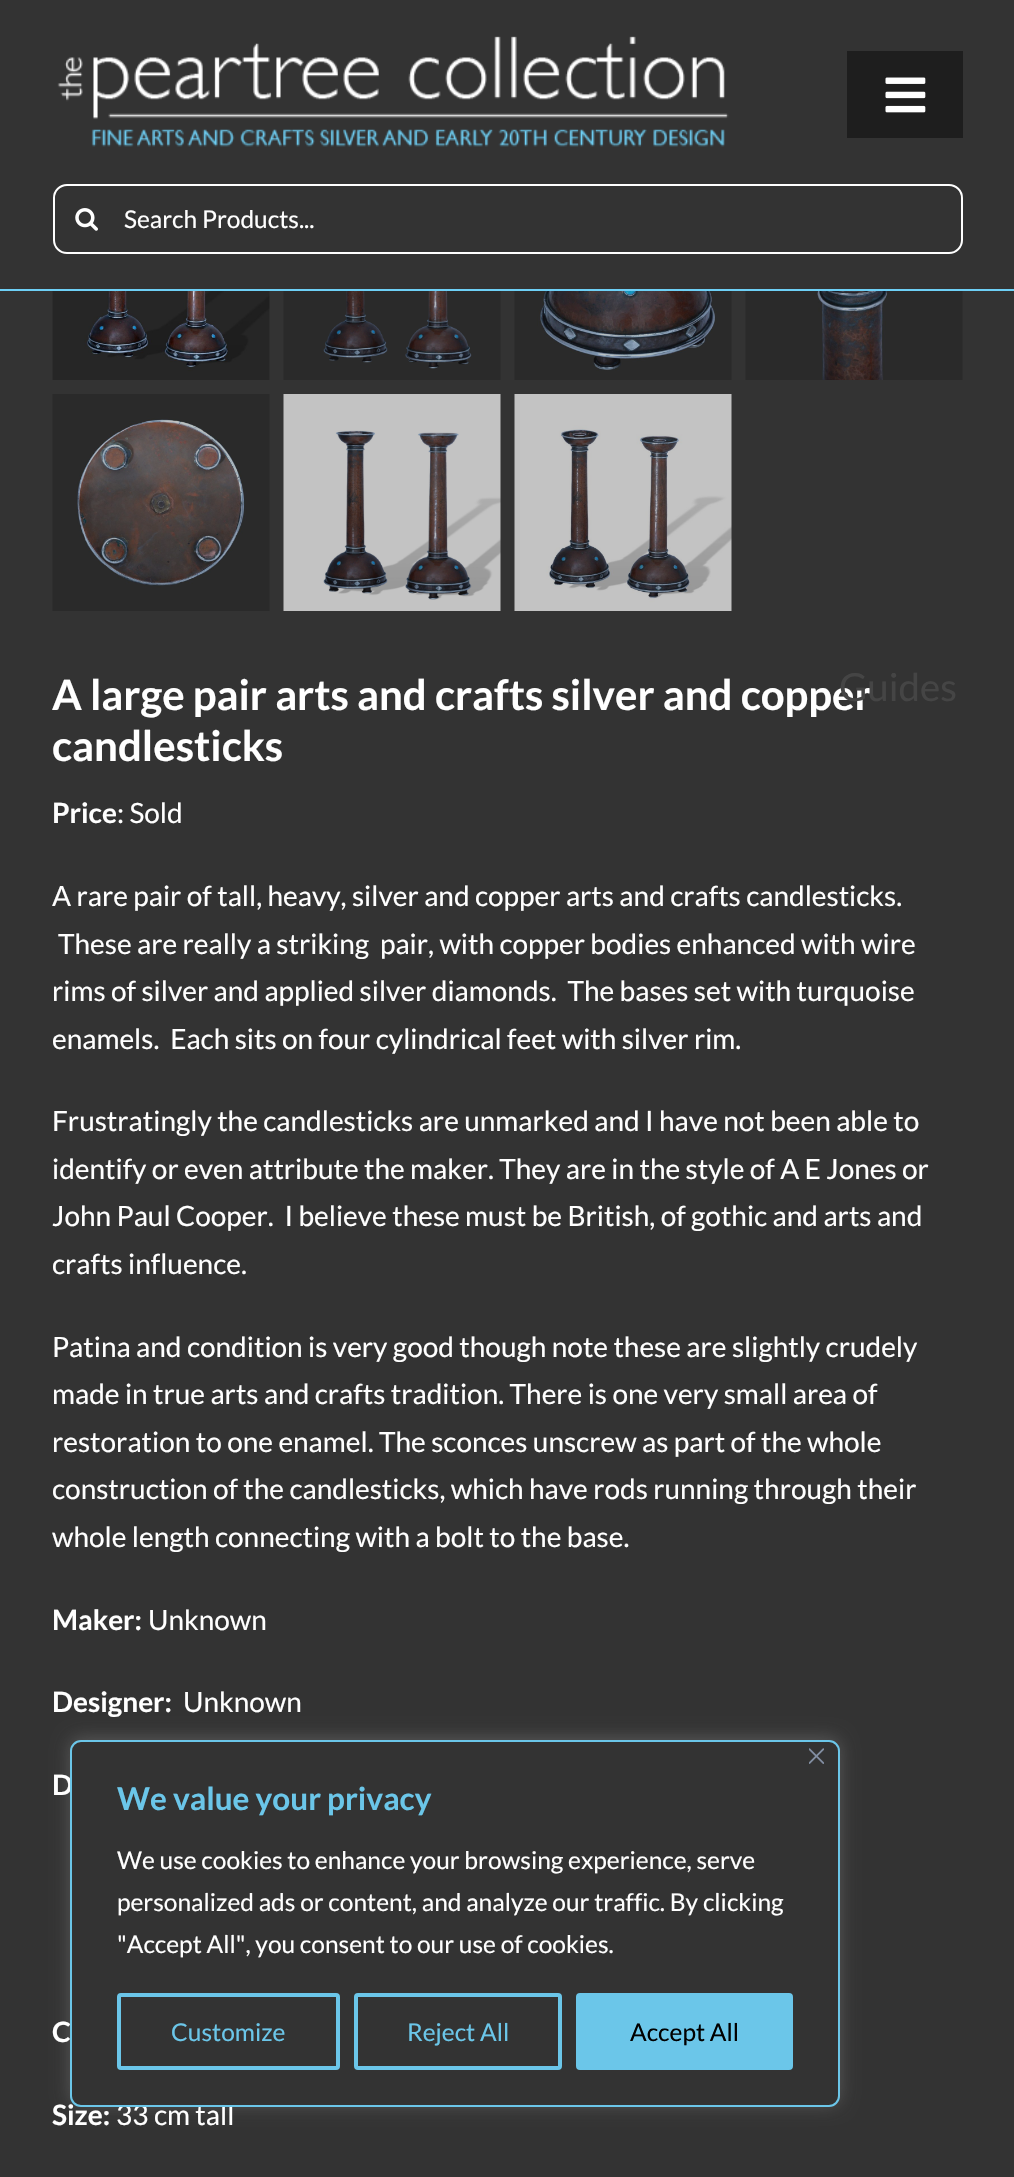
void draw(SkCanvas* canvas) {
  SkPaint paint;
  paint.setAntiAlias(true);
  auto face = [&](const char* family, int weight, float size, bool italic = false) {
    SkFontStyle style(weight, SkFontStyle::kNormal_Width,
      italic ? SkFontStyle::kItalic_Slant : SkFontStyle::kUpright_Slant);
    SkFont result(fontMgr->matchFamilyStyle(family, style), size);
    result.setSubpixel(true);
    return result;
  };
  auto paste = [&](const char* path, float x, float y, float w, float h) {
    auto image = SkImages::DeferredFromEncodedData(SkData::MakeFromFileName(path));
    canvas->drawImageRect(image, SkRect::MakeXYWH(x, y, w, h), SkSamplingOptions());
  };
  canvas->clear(0xff333333);
  paint.setColor(0xff6ed0f6);
  canvas->drawRect(SkRect::MakeXYWH(0, 289, 1014, 2), paint);
  paste("img/1.png", 57, 36, 672, 111);
  paint.setStroke(true);
  paint.setStrokeWidth(2);
  paint.setColor(0xffffffff);
  canvas->drawRoundRect(SkRect::MakeXYWH(54, 185, 908, 68), 13, 13, paint);
  paste("img/2.png", 75, 208, 23, 23);
  paint.setStroke(false);
  paint.setColor(0xff1e1e1e);
  canvas->drawRect(SkRect::MakeXYWH(847, 51, 116, 87), paint);
  paste("img/3.png", 885, 77, 41, 36);
  paste("img/4.png", 52, 291, 218, 89);
  paste("img/5.png", 283, 291, 218, 89);
  paste("img/6.png", 514, 291, 218, 89);
  paste("img/7.png", 745, 291, 218, 89);
  paste("img/8.png", 52, 394, 218, 217);
  paste("img/9.png", 283, 394, 218, 217);
  paste("img/10.png", 514, 394, 218, 217);
  paint.setColor(0x4dacabab);
  paint.setMaskFilter(SkMaskFilter::MakeBlur(kNormal_SkBlurStyle, 9));
  canvas->drawRoundRect(SkRect::MakeXYWH(70, 1738, 770, 367), 11, 11, paint);
  paint.setMaskFilter(nullptr);
  auto f0 = face("Lato", 400, 24.5f);
  paint.setColor(0xffffffff);
  canvas->drawString("Search Products...", 124, 228, f0, paint);
  auto f1 = face("Lato", 700, 42);
  canvas->drawString("A large pair arts and crafts silver and copper", 52, 710, f1, paint);
  auto f2 = face("Lato", 400, 38.5f);
  paint.setColor(0xff454545);
  canvas->drawString("Guides", 839, 701, f2, paint);
  paint.setColor(0xffffffff);
  canvas->drawString("candlesticks", 52, 761, f1, paint);
  auto f3 = face("Lato", 700, 28);
  canvas->drawString("Price", 52, 823, f3, paint);
  auto f4 = face("Lato", 400, 28);
  {
    const struct { const char* s; float x, y; } items[] = {
      {": Sold", 117, 823},
      {"A rare pair of tall, heavy, silver and copper arts and crafts candlesticks.", 52, 906},
      {"These are really a striking  pair, with copper bodies enhanced with wire", 58, 954},
      {"rims of silver and applied silver diamonds.  The bases set with turquoise", 52, 1001},
      {"enamels.  Each sits on four cylindrical feet with silver rim.", 52, 1049},
      {"Frustratingly the candlesticks are unmarked and I have not been able to", 52, 1131},
      {"identify or even attribute the maker. They are in the style of A E Jones or", 52, 1179},
      {"John Paul Cooper.  I believe these must be British, of gothic and arts and", 52, 1226},
      {"crafts influence.", 52, 1274},
      {"Patina and condition is very good though note these are slightly crudely", 52, 1357},
      {"made in true arts and crafts tradition. There is one very small area of", 52, 1404},
      {"restoration to one enamel. The sconces unscrew as part of the whole", 52, 1452},
      {"construction of the candlesticks, which have rods running through their", 52, 1499},
      {"whole length connecting with a bolt to the base.", 52, 1547},
    };
    for (auto [s, x, y] : items) {
      canvas->drawString(s, x, y, f4, paint);
    }
  }
  canvas->drawString("Maker:", 52, 1630, f3, paint);
  canvas->drawString("Unknown", 148, 1630, f4, paint);
  canvas->drawString("Designer:", 52, 1712, f3, paint);
  canvas->drawString("Unknown", 183, 1712, f4, paint);
  {
    const struct { const char* s; float x, y; } items[] = {
      {"D", 52, 1795},
      {"C", 52, 2042},
      {"Size:", 52, 2125},
    };
    for (auto [s, x, y] : items) {
      canvas->drawString(s, x, y, f3, paint);
    }
  }
  canvas->drawString("33 cm tall", 116, 2125, f4, paint);
  paint.setColor(0xff333333);
  canvas->drawRoundRect(SkRect::MakeXYWH(71, 1741, 768, 365), 10, 10, paint);
  paint.setStroke(true);
  paint.setColor(0xff6bc6e9);
  canvas->drawRoundRect(SkRect::MakeXYWH(71, 1741, 768, 365), 10, 10, paint);
  paste("img/11.png", 809, 1748, 15, 16);
  auto f5 = face("Lato", 700, 31.5f);
  paint.setStroke(false);
  canvas->drawString("We value your privacy", 117, 1810, f5, paint);
  paint.setColor(0xffffffff);
  {
    const struct { const char* s; float x, y; } items[] = {
      {"We use cookies to enhance your browsing experience, serve", 117, 1869},
      {"personalized ads or content, and analyze our traffic. By clicking", 117, 1911},
      {"\"Accept All\", you consent to our use of cookies.", 117, 1953},
    };
    for (auto [s, x, y] : items) {
      canvas->drawString(s, x, y, f0, paint);
    }
  }
  paint.setStroke(true);
  paint.setStrokeWidth(4);
  paint.setColor(0xff6bc6e9);
  canvas->drawRoundRect(SkRect::MakeXYWH(119, 1995, 219, 73), 2, 2, paint);
  paint.setStroke(false);
  canvas->drawString("Customize", 171, 2041, f0, paint);
  paint.setStroke(true);
  canvas->drawRoundRect(SkRect::MakeXYWH(356, 1995, 204, 73), 2, 2, paint);
  paint.setStroke(false);
  canvas->drawString("Reject All", 407, 2041, f0, paint);
  canvas->drawRoundRect(SkRect::MakeXYWH(578, 1995, 213, 73), 2, 2, paint);
  paint.setStroke(true);
  canvas->drawRoundRect(SkRect::MakeXYWH(578, 1995, 213, 73), 2, 2, paint);
  paint.setStroke(false);
  paint.setColor(0xff000000);
  canvas->drawString("Accept All", 630, 2041, f0, paint);
}
